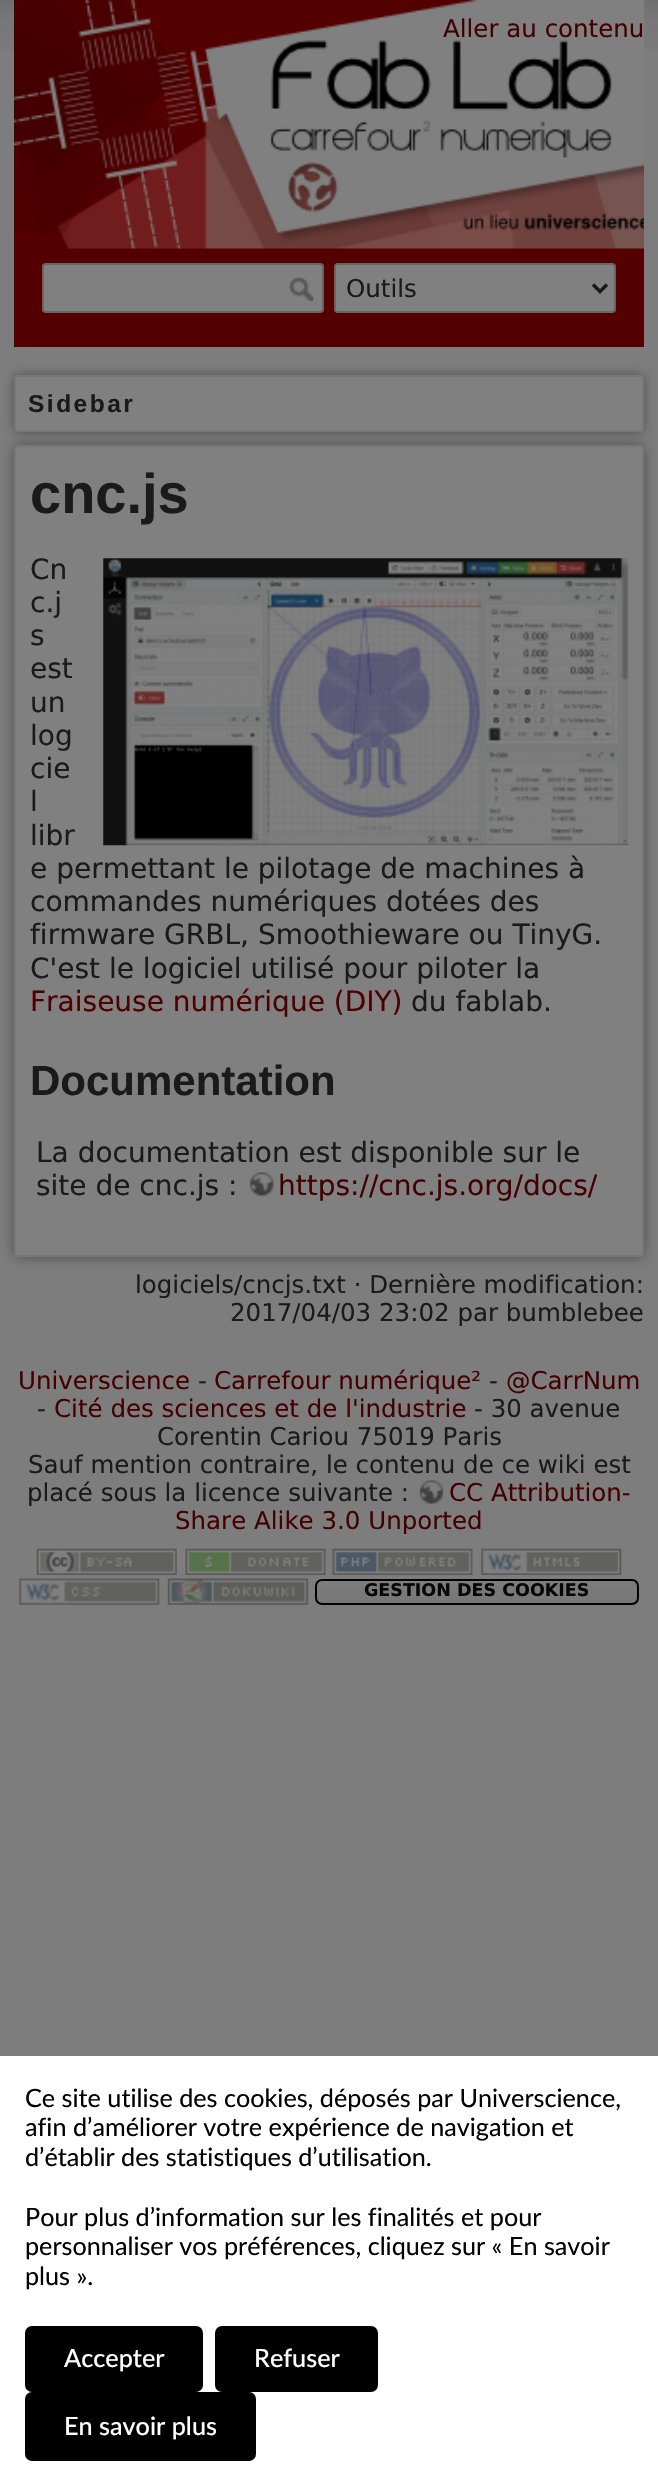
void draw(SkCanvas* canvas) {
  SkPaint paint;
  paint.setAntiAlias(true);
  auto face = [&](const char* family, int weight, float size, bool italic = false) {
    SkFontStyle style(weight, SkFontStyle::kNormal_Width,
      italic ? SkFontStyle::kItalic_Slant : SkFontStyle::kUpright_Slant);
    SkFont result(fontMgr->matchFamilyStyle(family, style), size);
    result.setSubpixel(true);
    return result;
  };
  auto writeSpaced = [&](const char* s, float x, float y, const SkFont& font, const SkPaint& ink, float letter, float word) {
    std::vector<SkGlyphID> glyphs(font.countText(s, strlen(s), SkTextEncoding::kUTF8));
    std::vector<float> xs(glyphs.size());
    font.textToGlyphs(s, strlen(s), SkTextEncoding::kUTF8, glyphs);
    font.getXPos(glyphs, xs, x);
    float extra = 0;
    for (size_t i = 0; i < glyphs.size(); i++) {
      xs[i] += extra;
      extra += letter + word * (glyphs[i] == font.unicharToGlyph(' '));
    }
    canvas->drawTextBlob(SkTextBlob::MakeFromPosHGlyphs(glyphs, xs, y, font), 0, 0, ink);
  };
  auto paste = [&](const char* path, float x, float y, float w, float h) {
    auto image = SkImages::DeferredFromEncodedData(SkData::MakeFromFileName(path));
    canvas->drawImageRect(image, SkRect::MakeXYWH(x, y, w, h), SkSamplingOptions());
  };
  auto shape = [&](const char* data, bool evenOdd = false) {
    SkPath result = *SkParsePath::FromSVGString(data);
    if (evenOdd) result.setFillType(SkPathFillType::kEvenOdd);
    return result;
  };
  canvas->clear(0xff7e7d7d);
  paste("img/1.png", 0, 0, 658, 51);
  paint.setColor(0xff550000);
  canvas->drawRect(SkRect::MakeXYWH(14, 248, 630, 99), paint);
  paste("img/2.png", 14, 0, 630, 249);
  paint.setColor(0xff808080);
  canvas->drawRoundRect(SkRect::MakeXYWH(43, 264, 280, 48), 3, 3, paint);
  paint.setStroke(true);
  paint.setStrokeWidth(2);
  paint.setColor(0xff666666);
  canvas->drawRoundRect(SkRect::MakeXYWH(43, 264, 280, 48), 3, 3, paint);
  paste("img/3.png", 289, 276, 25, 25);
  paint.setStroke(false);
  paint.setColor(0xff808080);
  canvas->drawRoundRect(SkRect::MakeXYWH(335, 264, 280, 48), 3, 3, paint);
  paint.setStroke(true);
  paint.setColor(0xff666666);
  canvas->drawRoundRect(SkRect::MakeXYWH(335, 264, 280, 48), 3, 3, paint);
  paint.setStrokeWidth(3.5f);
  paint.setColor(0xff1a1a1a);
  canvas->drawPath(shape("M593 284.5L600 291.5L607 284.5"), paint);
  paint.setStroke(false);
  paint.setColor(0xff4d4d4d);
  paint.setMaskFilter(SkMaskFilter::MakeBlur(kNormal_SkBlurStyle, 7));
  canvas->drawRoundRect(SkRect::MakeXYWH(14, 445, 630, 812), 4, 4, paint);
  paint.setMaskFilter(nullptr);
  paint.setColor(0xff808080);
  canvas->drawRoundRect(SkRect::MakeXYWH(15, 446, 628, 810), 3, 3, paint);
  paint.setStroke(true);
  paint.setStrokeWidth(2);
  paint.setColor(0xff777777);
  canvas->drawRoundRect(SkRect::MakeXYWH(15, 446, 628, 810), 3, 3, paint);
  paint.setStroke(false);
  paint.setColor(0xff4d4d4d);
  paint.setMaskFilter(SkMaskFilter::MakeBlur(kNormal_SkBlurStyle, 6));
  canvas->drawRoundRect(SkRect::MakeXYWH(14, 375, 630, 57), 4, 4, paint);
  paint.setMaskFilter(nullptr);
  paint.setColor(0xff808080);
  canvas->drawRoundRect(SkRect::MakeXYWH(15, 376, 628, 55), 3, 3, paint);
  paint.setStroke(true);
  paint.setColor(0xff777777);
  canvas->drawRoundRect(SkRect::MakeXYWH(15, 376, 628, 55), 3, 3, paint);
  paste("img/4.png", 103, 558, 526, 288);
  paste("img/5.png", 249, 1172, 26, 26);
  paste("img/6.png", 419, 1480, 25, 25);
  paste("img/7.png", 36, 1548, 141, 27);
  paste("img/8.png", 185, 1548, 141, 27);
  paste("img/9.png", 332, 1548, 141, 27);
  paste("img/10.png", 481, 1548, 141, 27);
  paste("img/11.png", 19, 1577, 141, 28);
  paste("img/12.png", 167, 1577, 142, 28);
  paint.setStroke(false);
  {
    const SkColor colors[] = {0xff808080, 0xff7a7a7a, 0xff777777, 0xff666666};
    const float stops[] = {0, 0.3f, 0.99f, 0.99f};
    const SkPoint ends[] = {{477, 1579}, {477, 1605}};
    paint.setShader(SkGradientShader::MakeLinear(ends, colors, stops, 4, SkTileMode::kClamp));
    paint.setAlpha(255);
  }
  canvas->drawRoundRect(SkRect::MakeXYWH(316, 1580, 322, 24), 6, 6, paint);
  paint.setStroke(true);
  paint.setShader(nullptr);
  paint.setColor(0xff000000);
  canvas->drawRoundRect(SkRect::MakeXYWH(316, 1580, 322, 24), 6, 6, paint);
  paint.setStroke(false);
  paint.setColor(0xffffffff);
  canvas->drawRect(SkRect::MakeXYWH(0, 2056, 658, 428), paint);
  paint.setColor(0xff000000);
  canvas->drawRoundRect(SkRect::MakeXYWH(25, 2326, 178, 66), 7, 7, paint);
  canvas->drawRoundRect(SkRect::MakeXYWH(215, 2326, 163, 66), 7, 7, paint);
  canvas->drawRoundRect(SkRect::MakeXYWH(25, 2392, 231, 69), 7, 7, paint);
  auto f0 = face("DejaVu Sans", 400, 24.5f);
  paint.setColor(0xff440000);
  canvas->drawString("Aller au contenu", 443, 37, f0, paint);
  paint.setColor(0xff1a1a1a);
  canvas->drawString("Outils", 346, 297, f0, paint);
  auto f1 = face("Liberation Sans", 700, 24.5f);
  writeSpaced("Sidebar", 28, 412, f1, paint, 2.5f, 0);
  auto f2 = face("Liberation Sans", 700, 56);
  canvas->drawString("cnc.js", 30, 513, f2, paint);
  auto f3 = face("DejaVu Sans", 400, 28);
  {
    const struct { const char* s; float x, y; } items[] = {
      {"Cn", 30, 579},
      {"c.j", 30, 612},
      {"s", 30, 645},
      {"est", 30, 678},
      {"un", 30, 712},
      {"log", 30, 745},
      {"cie", 30, 778},
      {"l", 30, 811},
      {"libr", 30, 845},
      {"e permettant le pilotage de machines à", 30, 878},
      {"commandes numériques dotées des", 30, 911},
      {"firmware GRBL, Smoothieware ou TinyG.", 30, 944},
      {"C'est le logiciel utilisé pour piloter la", 30, 978},
    };
    for (auto [s, x, y] : items) {
      canvas->drawString(s, x, y, f3, paint);
    }
  }
  paint.setColor(0xff4d0000);
  canvas->drawString("Fraiseuse numérique (DIY)", 30, 1011, f3, paint);
  paint.setColor(0xff1a1a1a);
  canvas->drawString("du fablab.", 411, 1011, f3, paint);
  auto f4 = face("Liberation Sans", 700, 42);
  canvas->drawString("Documentation", 30, 1095, f4, paint);
  canvas->drawString("La documentation est disponible sur le", 36, 1162, f3, paint);
  canvas->drawString("site de cnc.js :", 36, 1195, f3, paint);
  paint.setColor(0xff440000);
  canvas->drawString("https://cnc.js.org/docs/", 278, 1195, f3, paint);
  paint.setColor(0xff1a1a1a);
  canvas->drawString("logiciels/cncjs.txt · Dernière modification:", 135, 1293, f0, paint);
  canvas->drawString("2017/04/03 23:02 par bumblebee", 230, 1321, f0, paint);
  paint.setColor(0xff440000);
  canvas->drawString("Universcience", 18, 1389, f0, paint);
  paint.setColor(0xff1a1a1a);
  canvas->drawString("-", 198, 1389, f0, paint);
  paint.setColor(0xff440000);
  canvas->drawString("Carrefour numérique²", 214, 1389, f0, paint);
  paint.setColor(0xff1a1a1a);
  canvas->drawString("-", 489, 1389, f0, paint);
  paint.setColor(0xff440000);
  canvas->drawString("@CarrNum", 506, 1389, f0, paint);
  paint.setColor(0xff1a1a1a);
  canvas->drawString("-", 37, 1417, f0, paint);
  paint.setColor(0xff440000);
  canvas->drawString("Cité des sciences et de l'industrie", 54, 1417, f0, paint);
  paint.setColor(0xff1a1a1a);
  {
    const struct { const char* s; float x, y; } items[] = {
      {"- 30 avenue", 474, 1417},
      {"Corentin Cariou 75019 Paris", 157, 1445},
      {"Sauf mention contraire, le contenu de ce wiki est", 28, 1473},
      {"placé sous la licence suivante :", 27, 1501},
    };
    for (auto [s, x, y] : items) {
      canvas->drawString(s, x, y, f0, paint);
    }
  }
  paint.setColor(0xff440000);
  canvas->drawString("CC Attribution-", 449, 1501, f0, paint);
  canvas->drawString("Share Alike 3.0 Unported", 175, 1529, f0, paint);
  auto f5 = face("DejaVu Sans", 700, 17.5f);
  paint.setColor(0xff070708);
  canvas->drawString("GESTION DES COOKIES", 364, 1596, f5, paint);
  auto f6 = face("Lato", 400, 25.2f);
  paint.setColor(0xff000000);
  {
    const struct { const char* s; float x, y; } items[] = {
      {"Ce site utilise des cookies, déposés par Universcience,", 25, 2107},
      {"afin d’améliorer votre expérience de navigation et", 25, 2136},
      {"d’établir des statistiques d’utilisation.", 25, 2166},
      {"Pour plus d’information sur les finalités et pour", 25, 2226},
      {"personnaliser vos préférences, cliquez sur « En savoir", 25, 2255},
      {"plus ».", 25, 2285},
    };
    for (auto [s, x, y] : items) {
      canvas->drawString(s, x, y, f6, paint);
    }
  }
  auto f7 = face("Lato", 500, 25.2f);
  paint.setColor(0xffffffff);
  {
    const struct { const char* s; float x, y; } items[] = {
      {"Accepter", 64, 2367},
      {"Refuser", 254, 2367},
      {"En savoir plus", 64, 2435},
    };
    for (auto [s, x, y] : items) {
      canvas->drawString(s, x, y, f7, paint);
    }
  }
}
